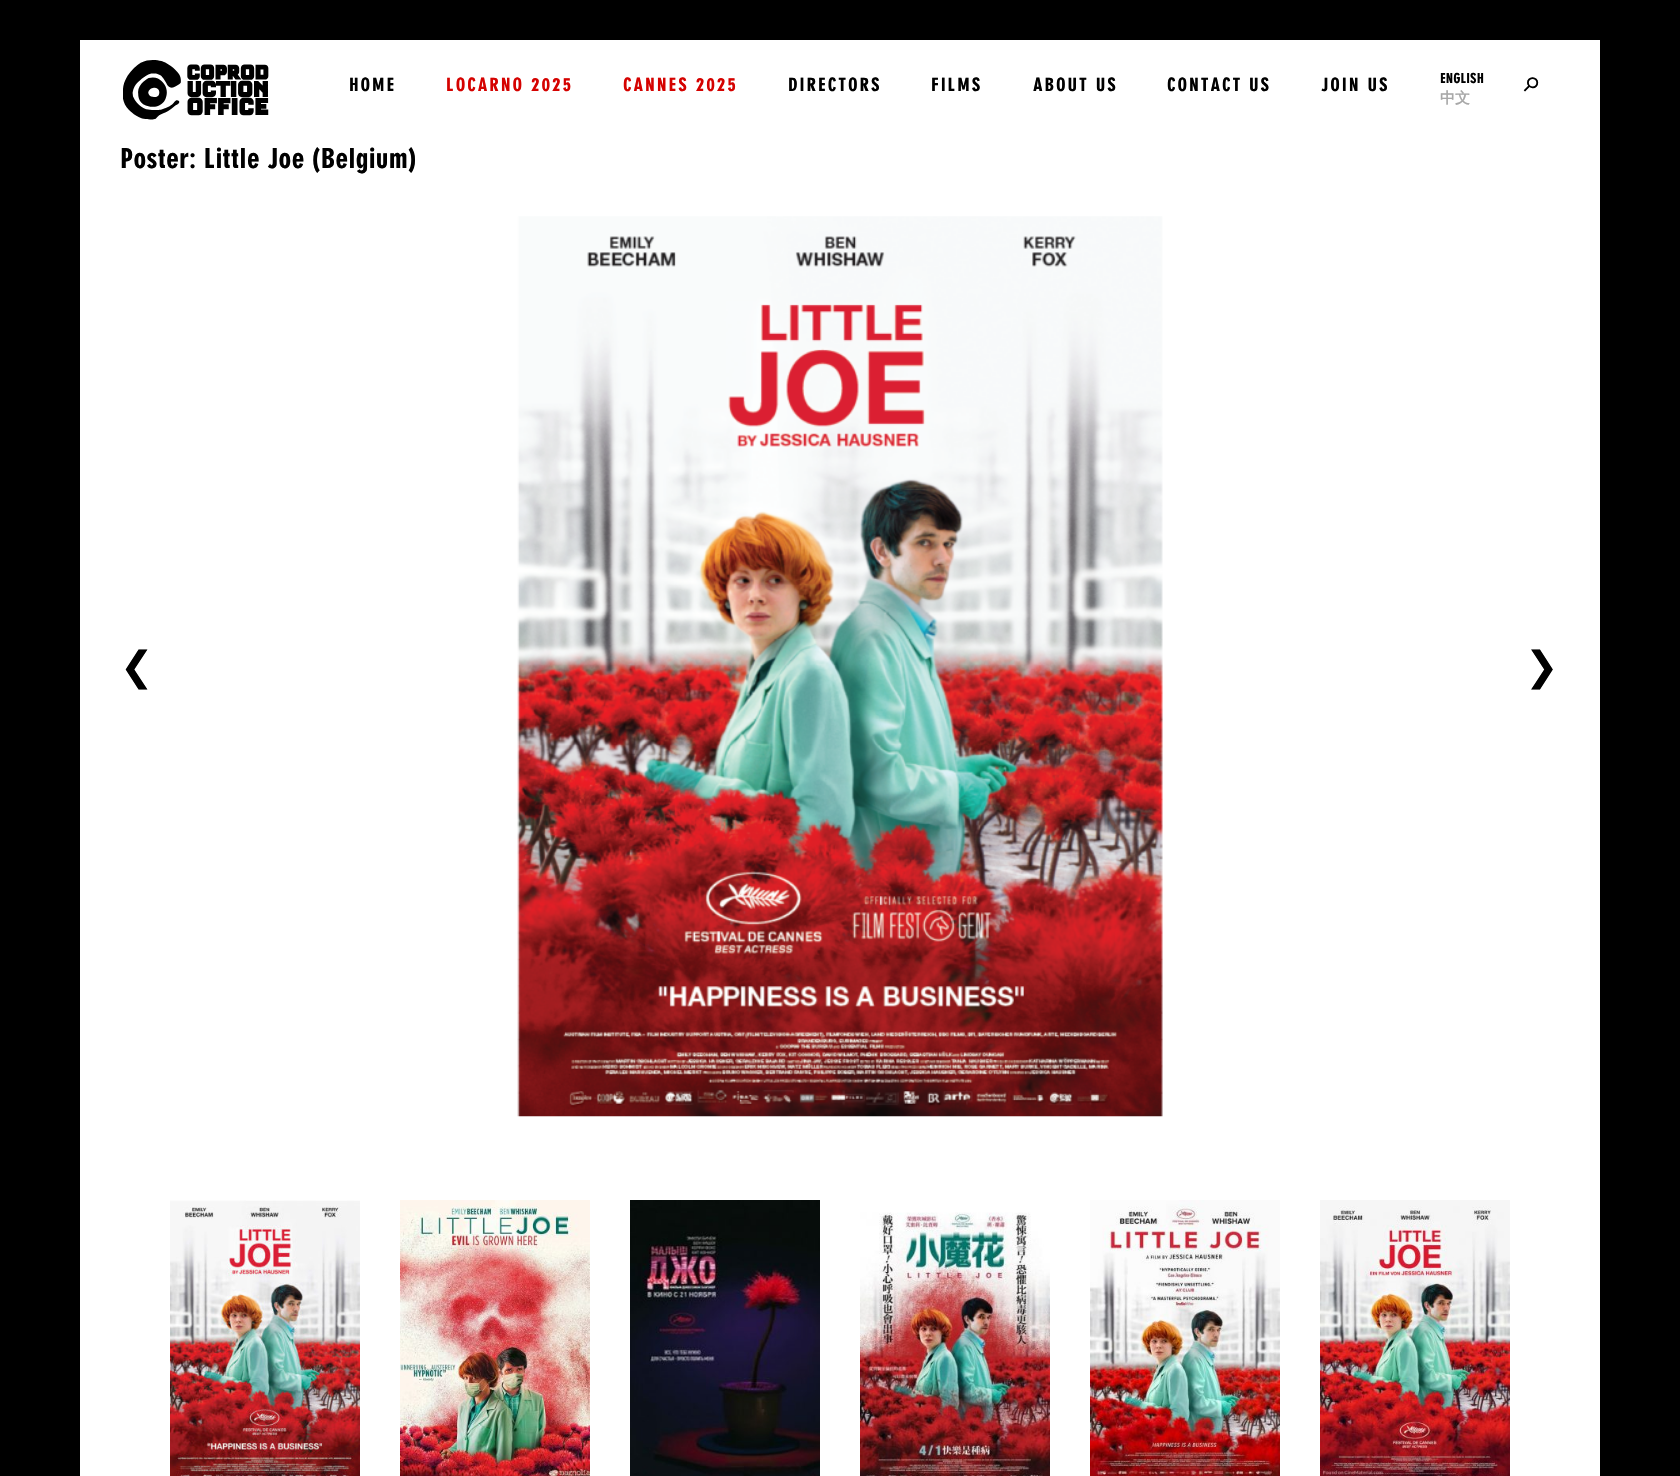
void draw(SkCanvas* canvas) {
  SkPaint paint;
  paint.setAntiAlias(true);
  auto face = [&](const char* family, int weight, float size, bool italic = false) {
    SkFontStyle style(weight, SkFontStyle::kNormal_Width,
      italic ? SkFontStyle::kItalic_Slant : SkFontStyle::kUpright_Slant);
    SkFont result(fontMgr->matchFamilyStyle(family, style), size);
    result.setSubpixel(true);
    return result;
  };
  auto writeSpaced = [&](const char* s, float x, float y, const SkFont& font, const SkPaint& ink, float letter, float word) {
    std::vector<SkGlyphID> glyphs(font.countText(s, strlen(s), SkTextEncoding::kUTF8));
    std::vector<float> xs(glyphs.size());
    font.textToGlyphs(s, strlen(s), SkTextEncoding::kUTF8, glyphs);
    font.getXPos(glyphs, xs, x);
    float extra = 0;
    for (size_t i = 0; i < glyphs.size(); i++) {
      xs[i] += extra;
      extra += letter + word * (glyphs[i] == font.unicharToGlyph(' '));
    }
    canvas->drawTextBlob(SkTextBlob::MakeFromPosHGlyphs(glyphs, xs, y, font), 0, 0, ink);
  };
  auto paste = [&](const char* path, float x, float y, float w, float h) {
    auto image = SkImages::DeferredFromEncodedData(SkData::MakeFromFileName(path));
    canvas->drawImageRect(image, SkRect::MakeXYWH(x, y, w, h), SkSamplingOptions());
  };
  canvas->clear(0xff000000);
  paint.setColor(0xffffffff);
  canvas->drawRect(SkRect::MakeXYWH(80, 40, 1520, 1436), paint);
  paste("img/1.png", 123, 60, 146, 60);
  paste("img/2.png", 517, 216, 646, 901);
  paste("img/3.png", 170, 1200, 190, 276);
  paste("img/4.png", 400, 1200, 190, 276);
  paste("img/5.png", 630, 1200, 190, 276);
  paste("img/6.png", 860, 1212, 190, 264);
  paste("img/7.png", 1090, 1200, 190, 276);
  paste("img/8.png", 1320, 1200, 190, 276);
  auto f0 = face("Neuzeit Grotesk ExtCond", 900, 20);
  paint.setColor(0xff000000);
  writeSpaced("HOME", 349, 91, f0, paint, 1.9f, 0);
  paint.setColor(0xffd50200);
  writeSpaced("LOCARNO 2025", 446, 91, f0, paint, 1.9f, 0);
  writeSpaced("CANNES 2025", 623, 91, f0, paint, 1.9f, 0);
  paint.setColor(0xff000000);
  {
    const struct { const char* s; float x, y; } items[] = {
      {"DIRECTORS", 788, 91},
      {"FILMS", 931, 91},
      {"ABOUT US", 1033, 91},
      {"CONTACT US", 1167, 91},
      {"JOIN US", 1321, 91},
    };
    for (auto [s, x, y] : items) {
      writeSpaced(s, x, y, f0, paint, 1.9f, 0);
    }
  }
  auto f1 = face("Neuzeit Grotesk ExtCond", 900, 15);
  canvas->drawString("ENGLISH", 1440, 83, f1, paint);
  auto f2 = face("WenQuanYi Zen Hei", 700, 15);
  paint.setColor(0xffa8a8a8);
  canvas->drawString("中文", 1440, 103, f2, paint);
  auto f3 = face("DejaVu Sans", 400, 20);
  paint.setColor(0xff000000);
  canvas->save();
  canvas->rotate(45, 1521, 84);
  writeSpaced("⚲", 1521, 84, f3, paint, 1.9f, 0);
  canvas->restore();
  auto f4 = face("Neuzeit Grotesk ExtCond", 900, 30);
  canvas->drawString("Poster: Little Joe (Belgium)", 120, 168, f4, paint);
  auto f5 = face("DejaVu Sans", 400, 40);
  writeSpaced("❮", 120, 680, f5, paint, 1.9f, 0);
  writeSpaced("❯", 1525, 680, f5, paint, 1.9f, 0);
}
